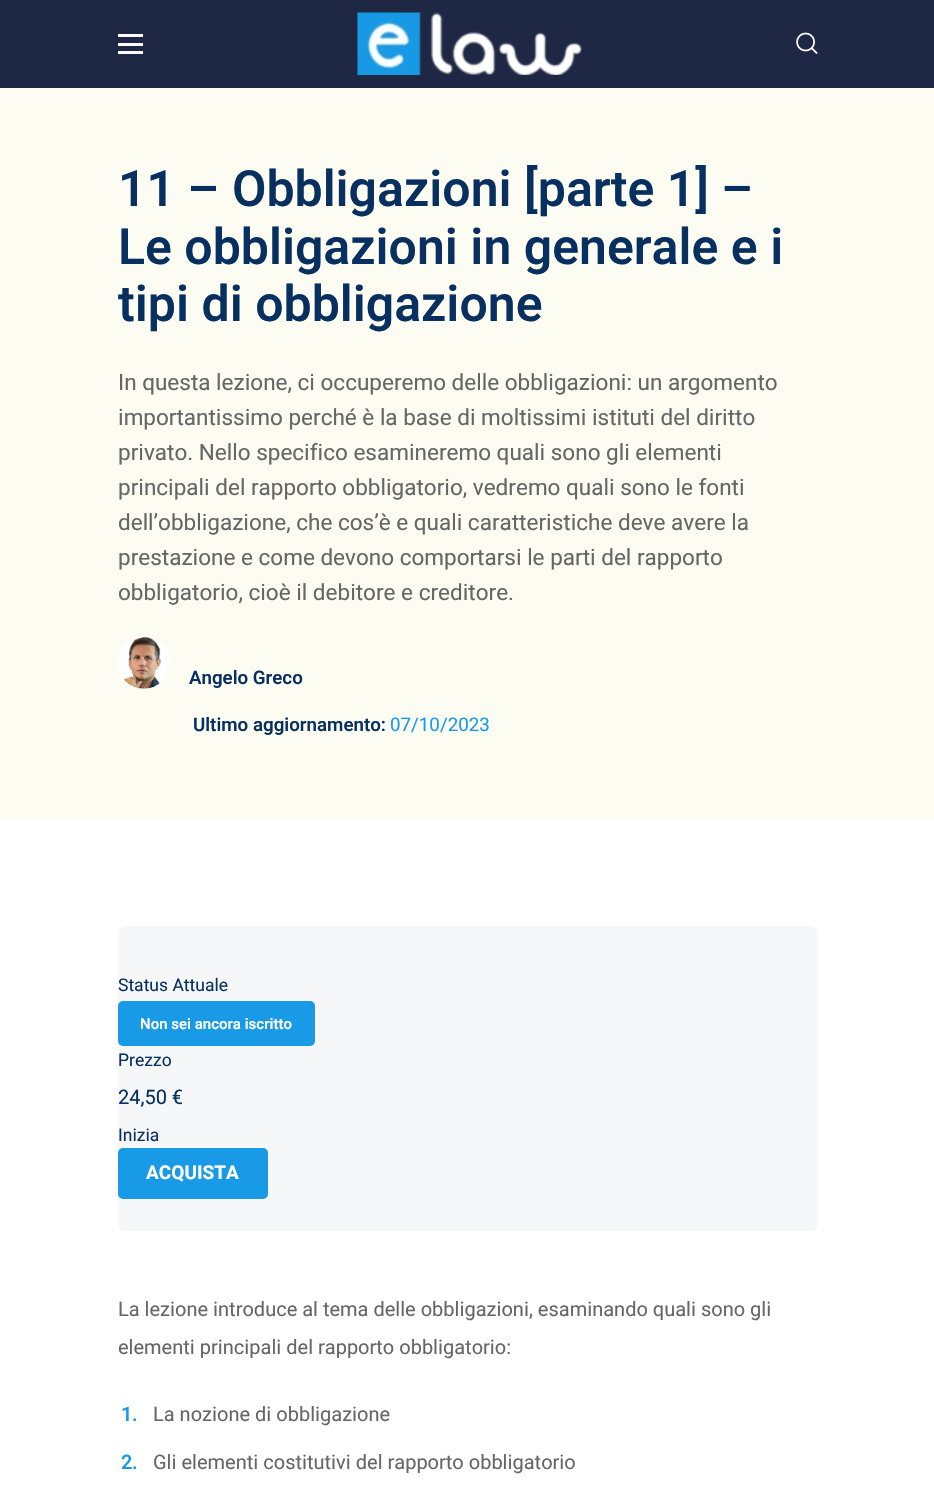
void draw(SkCanvas* canvas) {
  SkPaint paint;
  paint.setAntiAlias(true);
  auto face = [&](const char* family, int weight, float size, bool italic = false) {
    SkFontStyle style(weight, SkFontStyle::kNormal_Width,
      italic ? SkFontStyle::kItalic_Slant : SkFontStyle::kUpright_Slant);
    SkFont result(fontMgr->matchFamilyStyle(family, style), size);
    result.setSubpixel(true);
    return result;
  };
  auto paste = [&](const char* path, float x, float y, float w, float h) {
    auto image = SkImages::DeferredFromEncodedData(SkData::MakeFromFileName(path));
    canvas->drawImageRect(image, SkRect::MakeXYWH(x, y, w, h), SkSamplingOptions());
  };
  canvas->clear(0xffffffff);
  {
    const struct { float x, y, w, h; SkColor color; } items[] = {
      {0, 0, 934, 88, 0xff1e2845},
      {118, 34, 25, 3, 0xffffffff},
      {118, 43, 25, 3, 0xffffffff},
      {118, 51, 25, 3, 0xffffffff},
    };
    for (auto [x, y, w, h, color] : items) {
      paint.setColor(color);
      canvas->drawRect(SkRect::MakeXYWH(x, y, w, h), paint);
    }
  }
  paste("img/1.png", 357, 12, 225, 63);
  paste("img/2.png", 796, 32, 22, 22);
  paint.setColor(0xfffcfcf2);
  canvas->drawRect(SkRect::MakeXYWH(0, 88, 934, 731), paint);
  paste("img/3.png", 118, 636, 52, 53);
  paint.setColor(0xfff6f7f9);
  canvas->drawRoundRect(SkRect::MakeXYWH(118, 926, 700, 305), 8, 8, paint);
  paint.setColor(0xff189ae6);
  canvas->drawRoundRect(SkRect::MakeXYWH(118, 1001, 197, 45), 5, 5, paint);
  canvas->drawRoundRect(SkRect::MakeXYWH(118, 1148, 150, 51), 5, 5, paint);
  auto f0 = face("Heebo", 600, 50);
  paint.setColor(0xff072f60);
  {
    const struct { const char* s; float x, y; } items[] = {
      {"11 – Obbligazioni [parte 1] –", 118, 206},
      {"Le obbligazioni in generale e i", 118, 264},
      {"tipi di obbligazione", 118, 321},
    };
    for (auto [s, x, y] : items) {
      canvas->drawString(s, x, y, f0, paint);
    }
  }
  auto f1 = face("Heebo", 400, 22.5f);
  paint.setColor(0xff666666);
  {
    const struct { const char* s; float x, y; } items[] = {
      {"In questa lezione, ci occuperemo delle obbligazioni: un argomento", 118, 390},
      {"importantissimo perché è la base di moltissimi istituti del diritto", 118, 425},
      {"privato. Nello specifico esamineremo quali sono gli elementi", 118, 460},
      {"principali del rapporto obbligatorio, vedremo quali sono le fonti", 118, 495},
      {"dell’obbligazione, che cos’è e quali caratteristiche deve avere la", 118, 530},
      {"prestazione e come devono comportarsi le parti del rapporto", 118, 565},
      {"obbligatorio, cioè il debitore e creditore.", 118, 600},
    };
    for (auto [s, x, y] : items) {
      canvas->drawString(s, x, y, f1, paint);
    }
  }
  auto f2 = face("Heebo", 600, 18.75f);
  paint.setColor(0xff072f60);
  canvas->drawString("Angelo Greco", 189, 684, f2, paint);
  canvas->drawString("Ultimo aggiornamento:", 193, 731, f2, paint);
  auto f3 = face("Heebo", 400, 18.75f);
  paint.setColor(0xff189ae6);
  canvas->drawString("07/10/2023", 390, 731, f3, paint);
  auto f4 = face("Heebo", 400, 17.5f);
  paint.setColor(0xff072f60);
  canvas->drawString("Status Attuale", 118, 991, f4, paint);
  auto f5 = face("Heebo", 600, 15);
  paint.setColor(0xffffffff);
  canvas->drawString("Non sei ancora iscritto", 140, 1029, f5, paint);
  paint.setColor(0xff072f60);
  canvas->drawString("Prezzo", 118, 1066, f4, paint);
  auto f6 = face("Heebo", 400, 20);
  canvas->drawString("24,50 €", 118, 1104, f6, paint);
  canvas->drawString("Inizia", 118, 1141, f4, paint);
  auto f7 = face("Heebo", 700, 19);
  paint.setColor(0xffffffff);
  canvas->drawString("ACQUISTA", 146, 1179, f7, paint);
  paint.setColor(0xff666666);
  canvas->drawString("La lezione introduce al tema delle obbligazioni, esaminando quali sono gli", 118, 1316, f6, paint);
  canvas->drawString("elementi principali del rapporto obbligatorio:", 118, 1354, f6, paint);
  auto f8 = face("Heebo", 600, 20);
  paint.setColor(0xff189ae6);
  canvas->drawString("1", 121, 1421, f8, paint);
  canvas->drawString(".", 132, 1421, f8, paint);
  paint.setColor(0xff666666);
  canvas->drawString("La nozione di obbligazione", 153, 1421, f6, paint);
  paint.setColor(0xff189ae6);
  canvas->drawString("2", 121, 1469, f8, paint);
  canvas->drawString(".", 132, 1469, f8, paint);
  paint.setColor(0xff666666);
  canvas->drawString("Gli elementi costitutivi del rapporto obbligatorio", 153, 1469, f6, paint);
}
